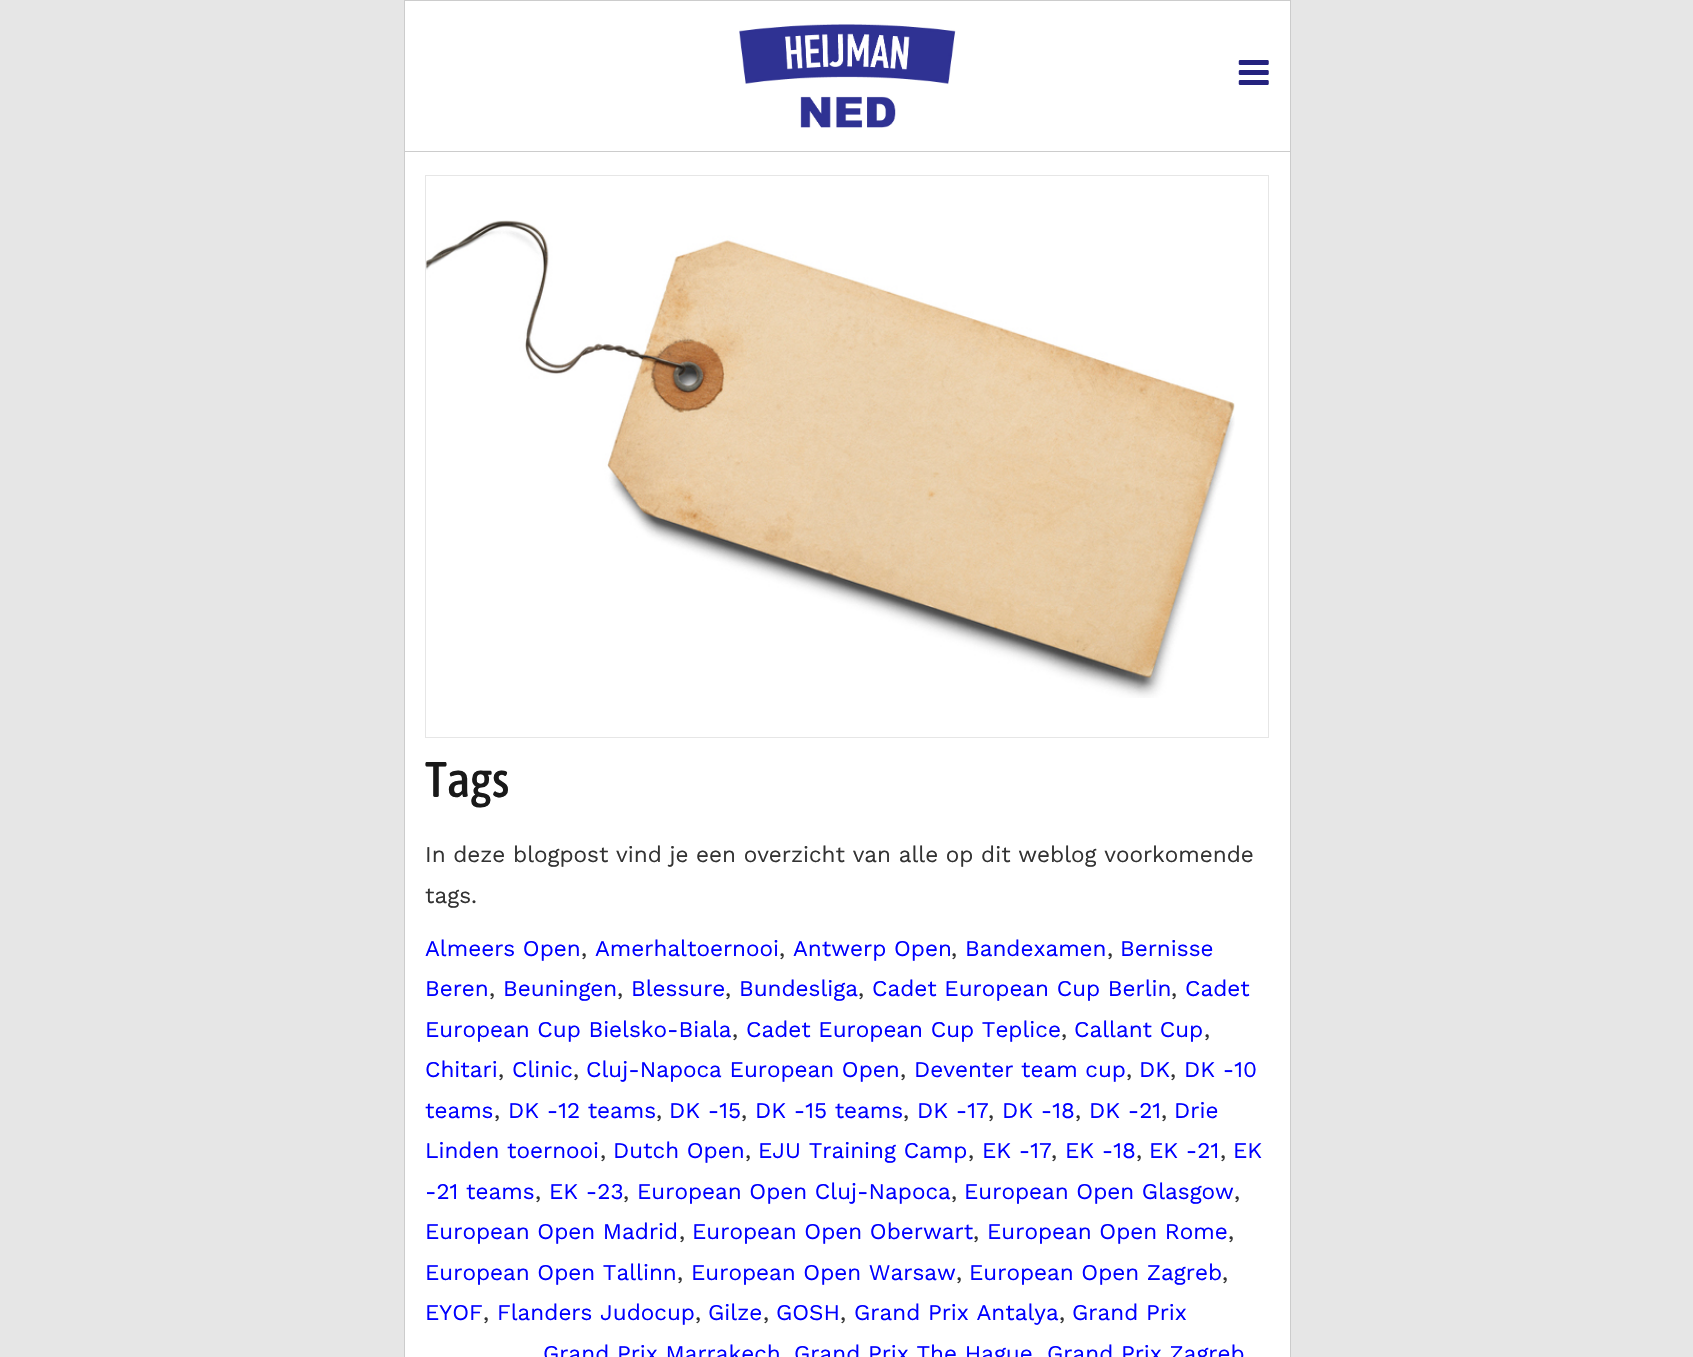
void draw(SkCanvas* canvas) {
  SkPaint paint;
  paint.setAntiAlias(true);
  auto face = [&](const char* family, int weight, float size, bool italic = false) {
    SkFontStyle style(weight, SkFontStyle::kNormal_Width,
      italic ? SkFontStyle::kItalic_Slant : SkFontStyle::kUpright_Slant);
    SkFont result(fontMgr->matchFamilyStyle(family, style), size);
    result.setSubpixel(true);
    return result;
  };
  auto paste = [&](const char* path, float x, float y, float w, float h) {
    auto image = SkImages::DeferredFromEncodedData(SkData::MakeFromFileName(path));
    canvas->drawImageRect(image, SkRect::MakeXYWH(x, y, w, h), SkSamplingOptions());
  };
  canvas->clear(0xffe6e6e6);
  {
    const struct { float x, y, w, h; SkColor color; } items[] = {
      {405, 1, 885, 150, 0xffffffff},
      {404, 0, 887, 1, 0xffcccccc},
      {1290, 0, 1, 151, 0xffcccccc},
      {404, 0, 1, 151, 0xffcccccc},
    };
    for (auto [x, y, w, h, color] : items) {
      paint.setColor(color);
      canvas->drawRect(SkRect::MakeXYWH(x, y, w, h), paint);
    }
  }
  paste("img/1.png", 739, 24, 217, 104);
  paste("img/2.png", 1238, 60, 31, 25);
  paint.setColor(0xffffffff);
  canvas->drawRect(SkRect::MakeXYWH(404.5f, 151.5f, 886, 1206), paint);
  paint.setStroke(true);
  paint.setStrokeWidth(1);
  paint.setColor(0xffcccccc);
  canvas->drawRect(SkRect::MakeXYWH(404.5f, 151.5f, 886, 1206), paint);
  paint.setColor(0xffe6e6e6);
  canvas->drawRect(SkRect::MakeXYWH(425.5f, 175.5f, 843, 562), paint);
  paste("img/3.png", 426, 220, 809, 478);
  auto f0 = face("Asap Condensed", 500, 50);
  paint.setStroke(false);
  paint.setColor(0xff191919);
  canvas->drawString("Tags", 425, 797, f0, paint);
  auto f1 = face("Work Sans", 400, 22.5f);
  paint.setColor(0xff333333);
  canvas->drawString("In deze blogpost vind je een overzicht van alle op dit weblog voorkomende", 425, 862, f1, paint);
  canvas->drawString("tags.", 425, 903, f1, paint);
  paint.setColor(0xff0000ff);
  canvas->drawString("Almeers Open", 425, 956, f1, paint);
  paint.setColor(0xff333333);
  canvas->drawString(",", 581, 956, f1, paint);
  paint.setColor(0xff0000ff);
  canvas->drawString("Amerhaltoernooi", 595, 956, f1, paint);
  paint.setColor(0xff333333);
  canvas->drawString(",", 779, 956, f1, paint);
  paint.setColor(0xff0000ff);
  canvas->drawString("Antwerp Open", 793, 956, f1, paint);
  paint.setColor(0xff333333);
  canvas->drawString(",", 951, 956, f1, paint);
  paint.setColor(0xff0000ff);
  canvas->drawString("Bandexamen", 965, 956, f1, paint);
  paint.setColor(0xff333333);
  canvas->drawString(",", 1107, 956, f1, paint);
  paint.setColor(0xff0000ff);
  canvas->drawString("Bernisse", 1120, 956, f1, paint);
  canvas->drawString("Beren", 425, 996, f1, paint);
  paint.setColor(0xff333333);
  canvas->drawString(",", 489, 996, f1, paint);
  paint.setColor(0xff0000ff);
  canvas->drawString("Beuningen", 503, 996, f1, paint);
  paint.setColor(0xff333333);
  canvas->drawString(",", 617, 996, f1, paint);
  paint.setColor(0xff0000ff);
  canvas->drawString("Blessure", 631, 996, f1, paint);
  paint.setColor(0xff333333);
  canvas->drawString(",", 725, 996, f1, paint);
  paint.setColor(0xff0000ff);
  canvas->drawString("Bundesliga", 739, 996, f1, paint);
  paint.setColor(0xff333333);
  canvas->drawString(",", 858, 996, f1, paint);
  paint.setColor(0xff0000ff);
  canvas->drawString("Cadet European Cup Berlin", 872, 996, f1, paint);
  paint.setColor(0xff333333);
  canvas->drawString(",", 1171, 996, f1, paint);
  paint.setColor(0xff0000ff);
  canvas->drawString("Cadet", 1185, 996, f1, paint);
  canvas->drawString("European Cup Bielsko-Biala", 425, 1037, f1, paint);
  paint.setColor(0xff333333);
  canvas->drawString(",", 732, 1037, f1, paint);
  paint.setColor(0xff0000ff);
  canvas->drawString("Cadet European Cup Teplice", 746, 1037, f1, paint);
  paint.setColor(0xff333333);
  canvas->drawString(",", 1061, 1037, f1, paint);
  paint.setColor(0xff0000ff);
  canvas->drawString("Callant Cup", 1074, 1037, f1, paint);
  paint.setColor(0xff333333);
  canvas->drawString(",", 1204, 1037, f1, paint);
  paint.setColor(0xff0000ff);
  canvas->drawString("Chitari", 425, 1077, f1, paint);
  paint.setColor(0xff333333);
  canvas->drawString(",", 498, 1077, f1, paint);
  paint.setColor(0xff0000ff);
  canvas->drawString("Clinic", 512, 1077, f1, paint);
  paint.setColor(0xff333333);
  canvas->drawString(",", 573, 1077, f1, paint);
  paint.setColor(0xff0000ff);
  canvas->drawString("Cluj-Napoca European Open", 586, 1077, f1, paint);
  paint.setColor(0xff333333);
  canvas->drawString(",", 900, 1077, f1, paint);
  paint.setColor(0xff0000ff);
  canvas->drawString("Deventer team cup", 914, 1077, f1, paint);
  paint.setColor(0xff333333);
  canvas->drawString(",", 1126, 1077, f1, paint);
  paint.setColor(0xff0000ff);
  canvas->drawString("DK", 1139, 1077, f1, paint);
  paint.setColor(0xff333333);
  canvas->drawString(",", 1170, 1077, f1, paint);
  paint.setColor(0xff0000ff);
  canvas->drawString("DK -10", 1184, 1077, f1, paint);
  canvas->drawString("teams", 425, 1118, f1, paint);
  paint.setColor(0xff333333);
  canvas->drawString(",", 494, 1118, f1, paint);
  paint.setColor(0xff0000ff);
  canvas->drawString("DK -12 teams", 508, 1118, f1, paint);
  paint.setColor(0xff333333);
  canvas->drawString(",", 656, 1118, f1, paint);
  paint.setColor(0xff0000ff);
  canvas->drawString("DK -15", 669, 1118, f1, paint);
  paint.setColor(0xff333333);
  canvas->drawString(",", 741, 1118, f1, paint);
  paint.setColor(0xff0000ff);
  canvas->drawString("DK -15 teams", 755, 1118, f1, paint);
  paint.setColor(0xff333333);
  canvas->drawString(",", 903, 1118, f1, paint);
  paint.setColor(0xff0000ff);
  canvas->drawString("DK -17", 917, 1118, f1, paint);
  paint.setColor(0xff333333);
  canvas->drawString(",", 988, 1118, f1, paint);
  paint.setColor(0xff0000ff);
  canvas->drawString("DK -18", 1002, 1118, f1, paint);
  paint.setColor(0xff333333);
  canvas->drawString(",", 1075, 1118, f1, paint);
  paint.setColor(0xff0000ff);
  canvas->drawString("DK -21", 1089, 1118, f1, paint);
  paint.setColor(0xff333333);
  canvas->drawString(",", 1161, 1118, f1, paint);
  paint.setColor(0xff0000ff);
  canvas->drawString("Drie", 1174, 1118, f1, paint);
  canvas->drawString("Linden toernooi", 425, 1158, f1, paint);
  paint.setColor(0xff333333);
  canvas->drawString(",", 600, 1158, f1, paint);
  paint.setColor(0xff0000ff);
  canvas->drawString("Dutch Open", 613, 1158, f1, paint);
  paint.setColor(0xff333333);
  canvas->drawString(",", 745, 1158, f1, paint);
  paint.setColor(0xff0000ff);
  canvas->drawString("EJU Training Camp", 758, 1158, f1, paint);
  paint.setColor(0xff333333);
  canvas->drawString(",", 968, 1158, f1, paint);
  paint.setColor(0xff0000ff);
  canvas->drawString("EK -17", 982, 1158, f1, paint);
  paint.setColor(0xff333333);
  canvas->drawString(",", 1051, 1158, f1, paint);
  paint.setColor(0xff0000ff);
  canvas->drawString("EK -18", 1065, 1158, f1, paint);
  paint.setColor(0xff333333);
  canvas->drawString(",", 1136, 1158, f1, paint);
  paint.setColor(0xff0000ff);
  canvas->drawString("EK -21", 1149, 1158, f1, paint);
  paint.setColor(0xff333333);
  canvas->drawString(",", 1220, 1158, f1, paint);
  paint.setColor(0xff0000ff);
  canvas->drawString("EK", 1233, 1158, f1, paint);
  canvas->drawString("-21 teams", 425, 1199, f1, paint);
  paint.setColor(0xff333333);
  canvas->drawString(",", 535, 1199, f1, paint);
  paint.setColor(0xff0000ff);
  canvas->drawString("EK -23", 549, 1199, f1, paint);
  paint.setColor(0xff333333);
  canvas->drawString(",", 623, 1199, f1, paint);
  paint.setColor(0xff0000ff);
  canvas->drawString("European Open Cluj-Napoca", 637, 1199, f1, paint);
  paint.setColor(0xff333333);
  canvas->drawString(",", 951, 1199, f1, paint);
  paint.setColor(0xff0000ff);
  canvas->drawString("European Open Glasgow", 964, 1199, f1, paint);
  paint.setColor(0xff333333);
  canvas->drawString(",", 1234, 1199, f1, paint);
  paint.setColor(0xff0000ff);
  canvas->drawString("European Open Madrid", 425, 1239, f1, paint);
  paint.setColor(0xff333333);
  canvas->drawString(",", 679, 1239, f1, paint);
  paint.setColor(0xff0000ff);
  canvas->drawString("European Open Oberwart", 692, 1239, f1, paint);
  paint.setColor(0xff333333);
  canvas->drawString(",", 973, 1239, f1, paint);
  paint.setColor(0xff0000ff);
  canvas->drawString("European Open Rome", 987, 1239, f1, paint);
  paint.setColor(0xff333333);
  canvas->drawString(",", 1228, 1239, f1, paint);
  paint.setColor(0xff0000ff);
  canvas->drawString("European Open Tallinn", 425, 1280, f1, paint);
  paint.setColor(0xff333333);
  canvas->drawString(",", 677, 1280, f1, paint);
  paint.setColor(0xff0000ff);
  canvas->drawString("European Open Warsaw", 691, 1280, f1, paint);
  paint.setColor(0xff333333);
  canvas->drawString(",", 956, 1280, f1, paint);
  paint.setColor(0xff0000ff);
  canvas->drawString("European Open Zagreb", 969, 1280, f1, paint);
  paint.setColor(0xff333333);
  canvas->drawString(",", 1222, 1280, f1, paint);
  paint.setColor(0xff0000ff);
  canvas->drawString("EYOF", 425, 1320, f1, paint);
  paint.setColor(0xff333333);
  canvas->drawString(",", 483, 1320, f1, paint);
  paint.setColor(0xff0000ff);
  canvas->drawString("Flanders Judocup", 497, 1320, f1, paint);
  paint.setColor(0xff333333);
  canvas->drawString(",", 695, 1320, f1, paint);
  paint.setColor(0xff0000ff);
  canvas->drawString("Gilze", 708, 1320, f1, paint);
  paint.setColor(0xff333333);
  canvas->drawString(",", 763, 1320, f1, paint);
  paint.setColor(0xff0000ff);
  canvas->drawString("GOSH", 776, 1320, f1, paint);
  paint.setColor(0xff333333);
  canvas->drawString(",", 840, 1320, f1, paint);
  paint.setColor(0xff0000ff);
  canvas->drawString("Grand Prix Antalya", 854, 1320, f1, paint);
  paint.setColor(0xff333333);
  canvas->drawString(",", 1059, 1320, f1, paint);
  paint.setColor(0xff0000ff);
  {
    const struct { const char* s; float x, y; } items[] = {
      {"Grand Prix", 1072, 1320},
      {"Grand Prix Marrakech", 543, 1361},
      {"Grand Prix The Hague", 794, 1361},
      {"Grand Prix Zagreb", 1047, 1361},
    };
    for (auto [s, x, y] : items) {
      canvas->drawString(s, x, y, f1, paint);
    }
  }
}
